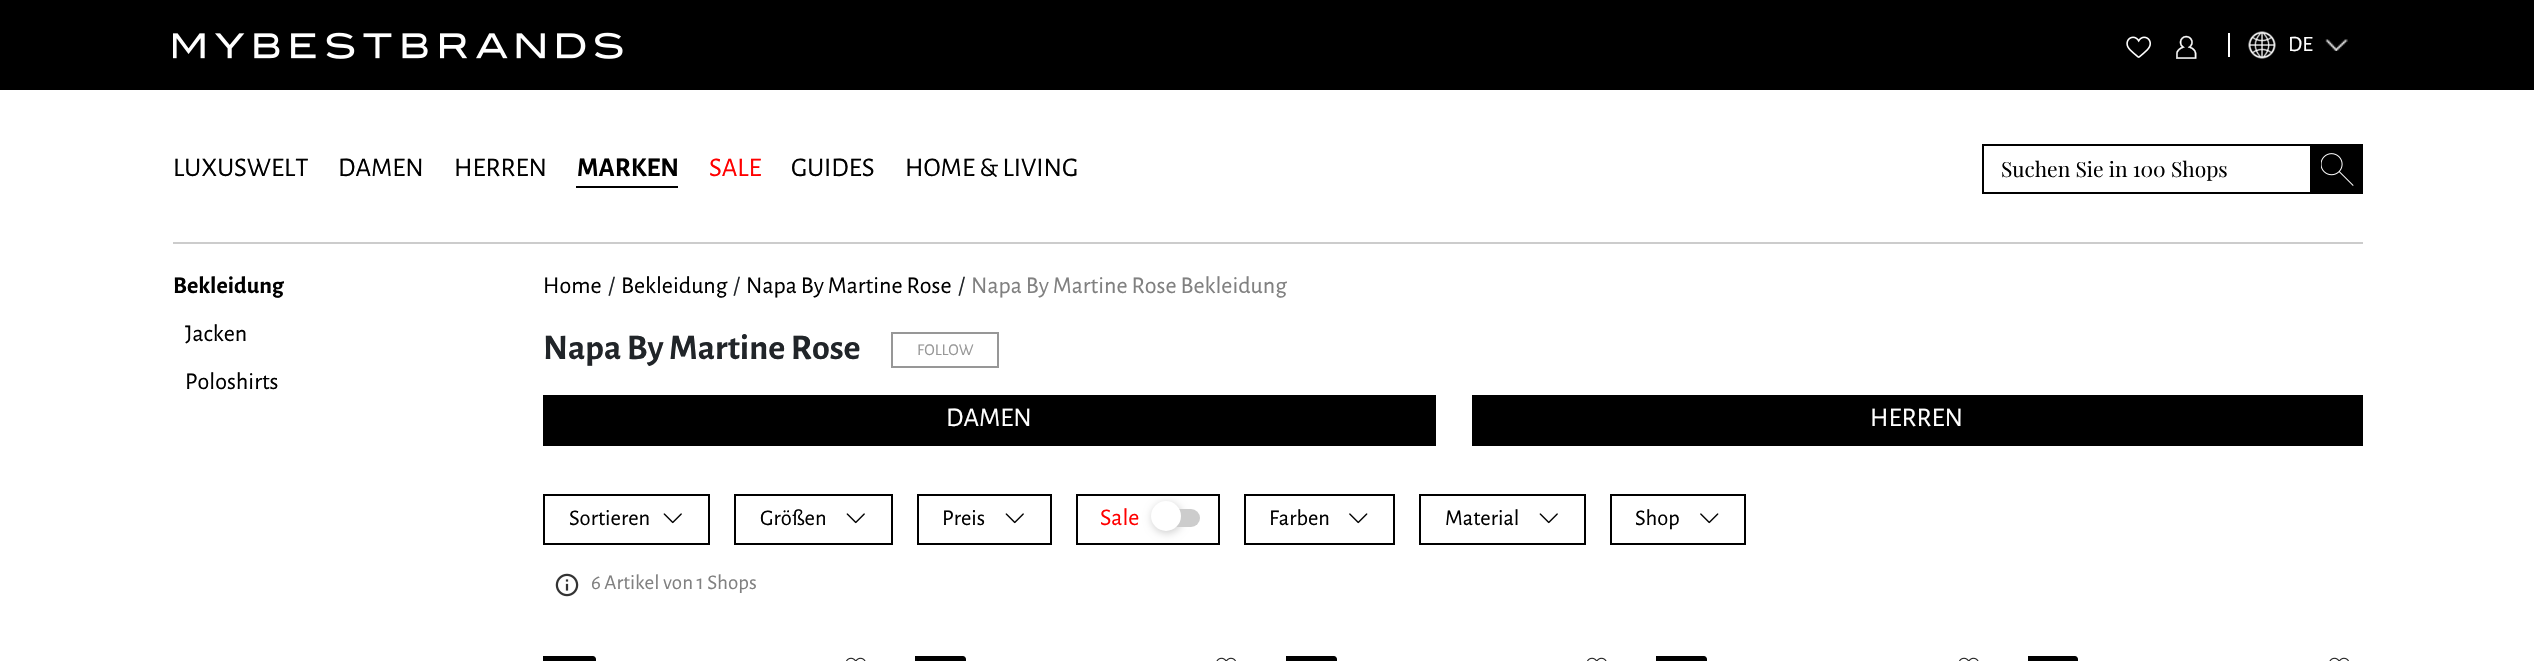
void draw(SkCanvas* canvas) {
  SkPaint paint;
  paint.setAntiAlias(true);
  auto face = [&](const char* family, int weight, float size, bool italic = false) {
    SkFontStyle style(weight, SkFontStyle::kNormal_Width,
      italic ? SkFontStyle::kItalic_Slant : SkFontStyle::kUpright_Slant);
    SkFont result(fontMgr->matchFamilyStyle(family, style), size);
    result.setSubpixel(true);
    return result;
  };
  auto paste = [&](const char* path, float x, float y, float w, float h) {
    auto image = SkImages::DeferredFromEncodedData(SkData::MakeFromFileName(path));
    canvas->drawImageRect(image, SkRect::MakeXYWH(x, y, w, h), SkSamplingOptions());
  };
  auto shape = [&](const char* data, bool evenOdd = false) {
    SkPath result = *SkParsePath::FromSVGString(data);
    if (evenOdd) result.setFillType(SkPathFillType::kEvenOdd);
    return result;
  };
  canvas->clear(0xffffffff);
  paint.setColor(0xff000000);
  canvas->drawRect(SkRect::MakeXYWH(0, 0, 2534, 90), paint);
  paste("img/1.png", 173, 32, 450, 27);
  paste("img/2.png", 2126, 36, 25, 22);
  paste("img/3.png", 2176, 35, 21, 24);
  paint.setColor(0xffffffff);
  canvas->drawRect(SkRect::MakeXYWH(2228, 33, 2, 24), paint);
  paste("img/4.png", 2248, 31, 28, 28);
  paste("img/5.png", 2325, 39, 23, 12);
  paint.setColor(0xff000000);
  canvas->drawRect(SkRect::MakeXYWH(576, 186, 102, 2), paint);
  paint.setStroke(true);
  paint.setStrokeWidth(2);
  canvas->drawRect(SkRect::MakeXYWH(1983, 145, 328, 48), paint);
  paint.setStroke(false);
  canvas->drawRect(SkRect::MakeXYWH(2312, 144, 51, 50), paint);
  paste("img/6.png", 2321, 153, 33, 33);
  paint.setColor(0xffcccccc);
  canvas->drawRect(SkRect::MakeXYWH(173, 242, 2190, 2), paint);
  paint.setStroke(true);
  paint.setColor(0xff979797);
  canvas->drawRect(SkRect::MakeXYWH(892, 333, 106, 34), paint);
  paint.setStroke(false);
  paint.setColor(0xff000000);
  canvas->drawRect(SkRect::MakeXYWH(543, 395, 893, 51), paint);
  canvas->drawRect(SkRect::MakeXYWH(1472, 395, 891, 51), paint);
  paint.setStroke(true);
  canvas->drawRect(SkRect::MakeXYWH(544, 495, 165, 49), paint);
  paste("img/7.png", 663, 513, 19, 11);
  canvas->drawRect(SkRect::MakeXYWH(735, 495, 157, 49), paint);
  paste("img/7.png", 846, 513, 19, 11);
  canvas->drawRect(SkRect::MakeXYWH(918, 495, 133, 49), paint);
  paste("img/7.png", 1005, 513, 19, 11);
  canvas->drawRect(SkRect::MakeXYWH(1077, 495, 142, 49), paint);
  paint.setStroke(false);
  paint.setColor(0xffcccccc);
  canvas->drawRoundRect(SkRect::MakeXYWH(1164, 509, 36, 18), 9, 9, paint);
  paint.setMaskFilter(SkMaskFilter::MakeBlur(kNormal_SkBlurStyle, 4.5f));
  canvas->drawRoundRect(SkRect::MakeXYWH(1152, 503, 30, 30), 15, 15, paint);
  paint.setMaskFilter(nullptr);
  paint.setColor(0xffffffff);
  canvas->drawCircle(1166, 516, 15, paint);
  paint.setStroke(true);
  paint.setColor(0xff000000);
  canvas->drawRect(SkRect::MakeXYWH(1245, 495, 149, 49), paint);
  paste("img/8.png", 1349, 513, 19, 11);
  canvas->drawRect(SkRect::MakeXYWH(1420, 495, 165, 49), paint);
  paste("img/7.png", 1539, 513, 19, 11);
  canvas->drawRect(SkRect::MakeXYWH(1611, 495, 134, 49), paint);
  paste("img/8.png", 1700, 513, 19, 11);
  paste("img/9.png", 555, 573, 24, 24);
  paint.setStroke(false);
  canvas->drawPath(shape("M543 656H593C594.5 656 596 657.5 596 659V661C596 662.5 594.5 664 593 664H543Z"), paint);
  paste("img/10.png", 846, 657, 20, 4);
  canvas->drawPath(shape("M915 656H963C964.5 656 966 657.5 966 659V661C966 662.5 964.5 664 963 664H915Z"), paint);
  paste("img/11.png", 1216, 657, 20, 4);
  canvas->drawPath(shape("M1286 656H1334C1335.5 656 1337 657.5 1337 659V661C1337 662.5 1335.5 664 1334 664H1286Z"), paint);
  paste("img/10.png", 1587, 657, 20, 4);
  canvas->drawPath(shape("M1656 656H1704C1705.5 656 1707 657.5 1707 659V661C1707 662.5 1705.5 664 1704 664H1656Z"), paint);
  paste("img/10.png", 1959, 657, 20, 4);
  canvas->drawPath(shape("M2028 656H2075C2076.5 656 2078 657.5 2078 659V661C2078 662.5 2076.5 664 2075 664H2028Z"), paint);
  paste("img/11.png", 2329, 657, 20, 4);
  auto f0 = face("Alegreya Sans", 400, 22);
  paint.setColor(0xffffffff);
  canvas->drawString("DE", 2288, 51, f0, paint);
  auto f1 = face("Alegreya Sans", 400, 27);
  paint.setColor(0xff000000);
  {
    const struct { const char* s; float x, y; } items[] = {
      {"LUXUSWELT", 173, 176},
      {"DAMEN", 338, 176},
      {"HERREN", 454, 176},
    };
    for (auto [s, x, y] : items) {
      canvas->drawString(s, x, y, f1, paint);
    }
  }
  auto f2 = face("Alegreya Sans", 700, 27);
  canvas->drawString("MARKEN", 577, 176, f2, paint);
  paint.setColor(0xffff0000);
  canvas->drawString("SALE", 709, 176, f1, paint);
  paint.setColor(0xff000000);
  canvas->drawString("GUIDES", 791, 176, f1, paint);
  canvas->drawString("HOME & LIVING", 905, 176, f1, paint);
  auto f3 = face("Playfair Display", 400, 21);
  canvas->drawString("Suchen Sie in 100 Shops", 2001, 177, f3, paint);
  auto f4 = face("Alegreya Sans", 700, 24);
  canvas->drawString("Bekleidung", 173, 293, f4, paint);
  auto f5 = face("Alegreya Sans", 400, 24);
  {
    const struct { const char* s; float x, y; } items[] = {
      {"Jacken", 185, 341},
      {"Poloshirts", 185, 389},
      {"Home", 543, 293},
    };
    for (auto [s, x, y] : items) {
      canvas->drawString(s, x, y, f5, paint);
    }
  }
  paint.setColor(0xff212529);
  canvas->drawString("/", 608, 293, f5, paint);
  paint.setColor(0xff000000);
  canvas->drawString("Bekleidung", 621, 293, f5, paint);
  paint.setColor(0xff212529);
  canvas->drawString("/", 733, 293, f5, paint);
  paint.setColor(0xff000000);
  canvas->drawString("Napa By Martine Rose", 746, 293, f5, paint);
  paint.setColor(0xff212529);
  canvas->drawString("/", 958, 293, f5, paint);
  paint.setColor(0xff808080);
  canvas->drawString("Napa By Martine Rose Bekleidung", 971, 293, f5, paint);
  auto f6 = face("Alegreya Sans", 700, 36);
  paint.setColor(0xff212529);
  canvas->drawString("Napa By Martine Rose", 543, 359, f6, paint);
  auto f7 = face("Alegreya Sans", 400, 16.5f);
  paint.setColor(0xff979797);
  canvas->drawString("FOLLOW", 917, 355, f7, paint);
  paint.setColor(0xffffffff);
  canvas->drawString("DAMEN", 946, 426, f1, paint);
  canvas->drawString("HERREN", 1870, 426, f1, paint);
  auto f8 = face("Alegreya Sans", 400, 22.5f);
  paint.setColor(0xff000000);
  {
    const struct { const char* s; float x, y; } items[] = {
      {"Sortieren", 569, 525},
      {"Größen", 760, 525},
      {"Preis", 942, 525},
    };
    for (auto [s, x, y] : items) {
      canvas->drawString(s, x, y, f8, paint);
    }
  }
  paint.setColor(0xffff0000);
  canvas->drawString("Sale", 1100, 525, f5, paint);
  paint.setColor(0xff000000);
  {
    const struct { const char* s; float x, y; } items[] = {
      {"Farben", 1269, 525},
      {"Material", 1445, 525},
      {"Shop", 1635, 525},
    };
    for (auto [s, x, y] : items) {
      canvas->drawString(s, x, y, f8, paint);
    }
  }
  auto f9 = face("Alegreya Sans", 400, 21);
  paint.setColor(0xff808080);
  canvas->drawString("6 Artikel von 1 Shops", 591, 589, f9, paint);
}
